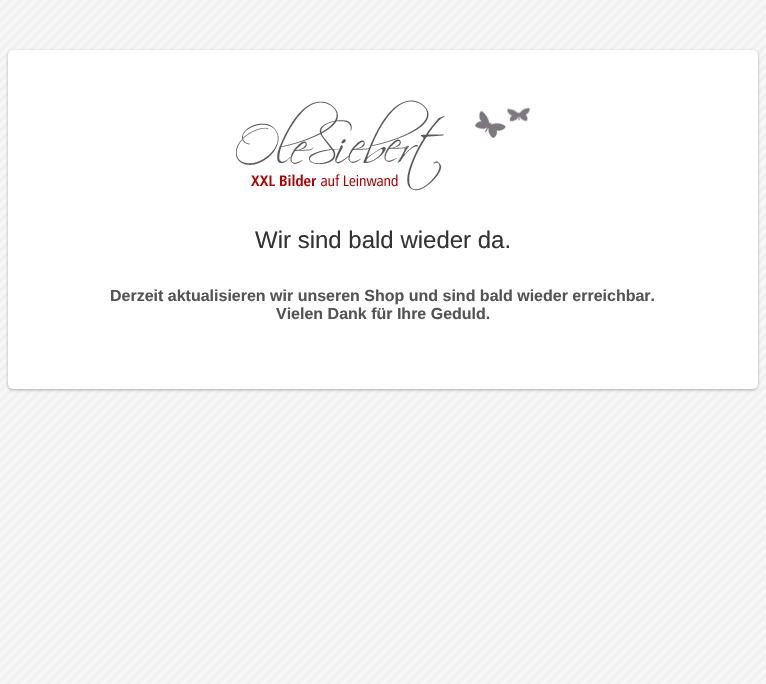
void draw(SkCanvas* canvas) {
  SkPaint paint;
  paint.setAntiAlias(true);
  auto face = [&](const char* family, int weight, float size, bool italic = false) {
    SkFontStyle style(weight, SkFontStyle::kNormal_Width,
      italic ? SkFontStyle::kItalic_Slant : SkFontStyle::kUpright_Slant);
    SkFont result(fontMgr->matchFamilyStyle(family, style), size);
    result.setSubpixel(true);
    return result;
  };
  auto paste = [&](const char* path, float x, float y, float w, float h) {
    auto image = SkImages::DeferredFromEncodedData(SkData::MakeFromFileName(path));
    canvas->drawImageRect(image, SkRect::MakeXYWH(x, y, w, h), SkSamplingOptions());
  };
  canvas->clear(0xfff7f7f7);
  paste("img/1.png", 0, 0, 766, 684);
  paint.setColor(0x4d000000);
  paint.setMaskFilter(SkMaskFilter::MakeBlur(kNormal_SkBlurStyle, 1.5f));
  canvas->drawRoundRect(SkRect::MakeXYWH(8, 51, 750, 339), 5, 5, paint);
  paint.setMaskFilter(nullptr);
  paint.setColor(0xffffffff);
  canvas->drawRoundRect(SkRect::MakeXYWH(8, 50, 750, 339), 5, 5, paint);
  paste("img/2.png", 236, 100, 294, 91);
  auto f0 = face("Liberation Sans", 400, 24);
  paint.setColor(0xff333333);
  canvas->drawString("Wir sind bald wieder da.", 255, 248, f0, paint);
  auto f1 = face("Liberation Sans", 700, 16);
  paint.setColor(0xff555454);
  canvas->drawString("Derzeit aktualisieren wir unseren Shop und sind bald wieder erreichbar.", 110, 301, f1, paint);
  canvas->drawString("Vielen Dank für Ihre Geduld.", 276, 319, f1, paint);
}
